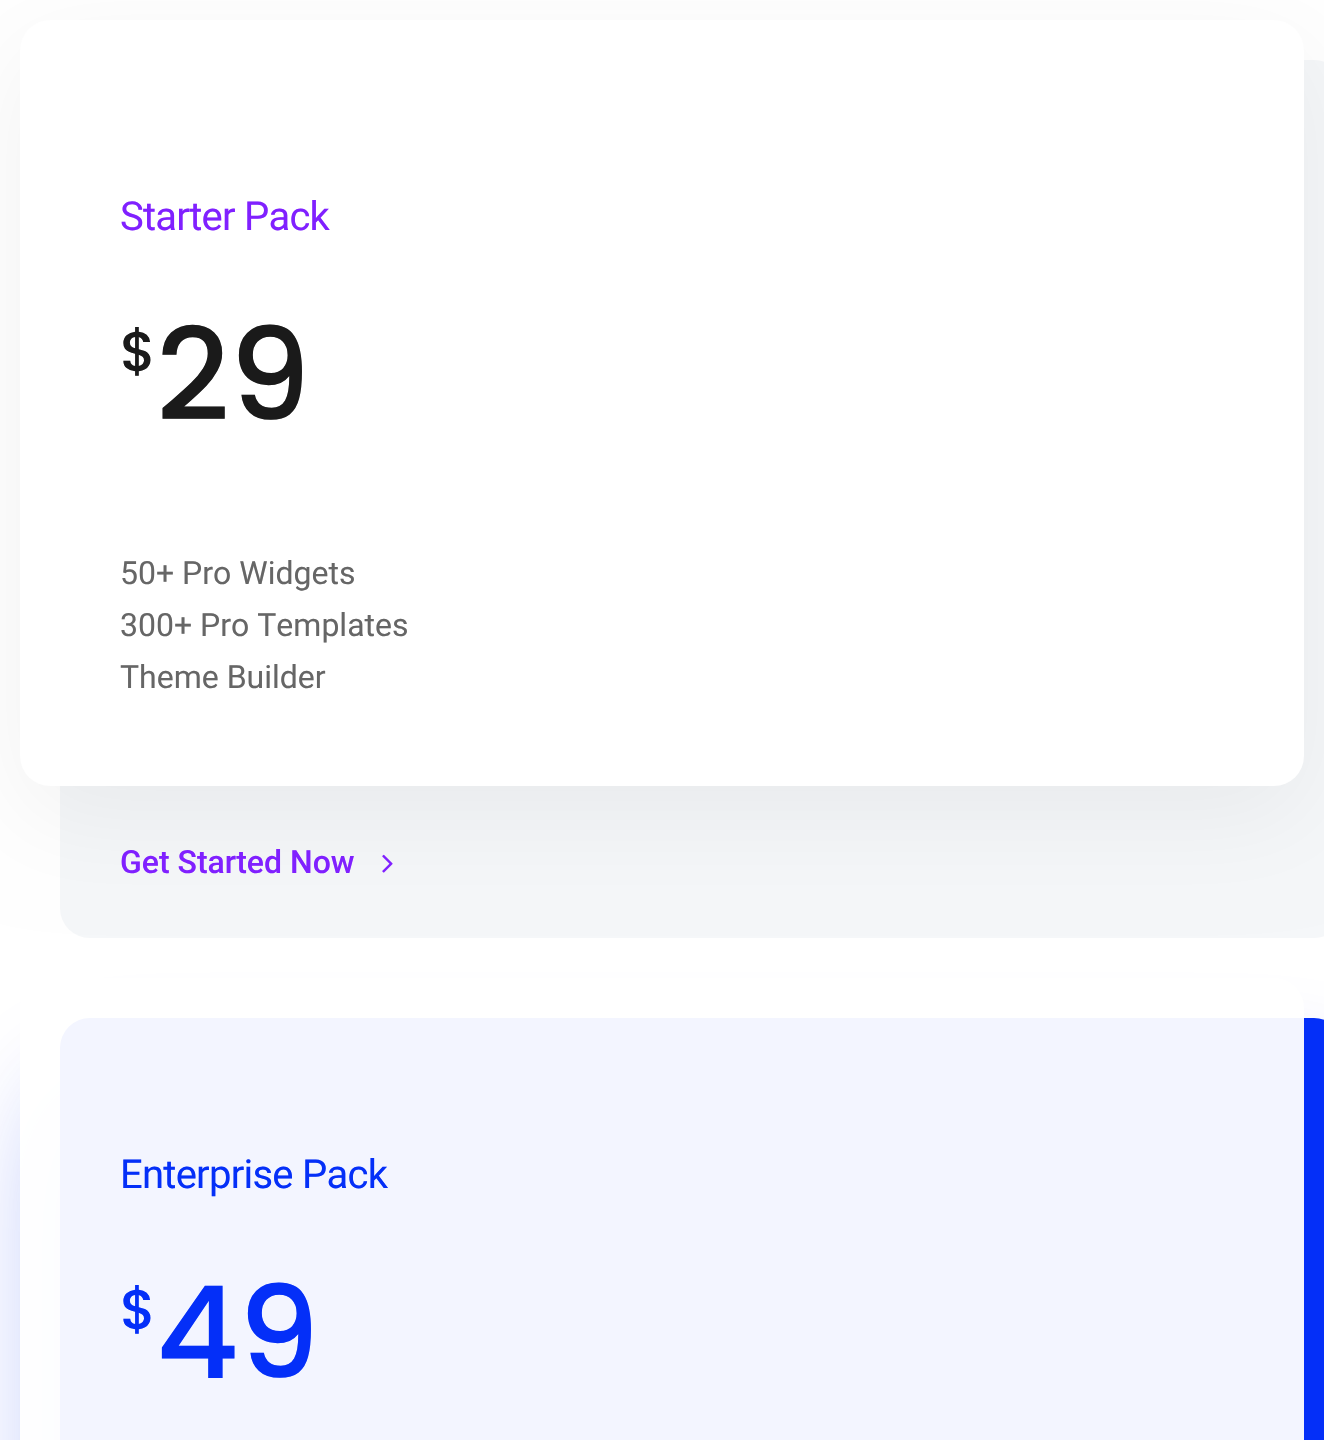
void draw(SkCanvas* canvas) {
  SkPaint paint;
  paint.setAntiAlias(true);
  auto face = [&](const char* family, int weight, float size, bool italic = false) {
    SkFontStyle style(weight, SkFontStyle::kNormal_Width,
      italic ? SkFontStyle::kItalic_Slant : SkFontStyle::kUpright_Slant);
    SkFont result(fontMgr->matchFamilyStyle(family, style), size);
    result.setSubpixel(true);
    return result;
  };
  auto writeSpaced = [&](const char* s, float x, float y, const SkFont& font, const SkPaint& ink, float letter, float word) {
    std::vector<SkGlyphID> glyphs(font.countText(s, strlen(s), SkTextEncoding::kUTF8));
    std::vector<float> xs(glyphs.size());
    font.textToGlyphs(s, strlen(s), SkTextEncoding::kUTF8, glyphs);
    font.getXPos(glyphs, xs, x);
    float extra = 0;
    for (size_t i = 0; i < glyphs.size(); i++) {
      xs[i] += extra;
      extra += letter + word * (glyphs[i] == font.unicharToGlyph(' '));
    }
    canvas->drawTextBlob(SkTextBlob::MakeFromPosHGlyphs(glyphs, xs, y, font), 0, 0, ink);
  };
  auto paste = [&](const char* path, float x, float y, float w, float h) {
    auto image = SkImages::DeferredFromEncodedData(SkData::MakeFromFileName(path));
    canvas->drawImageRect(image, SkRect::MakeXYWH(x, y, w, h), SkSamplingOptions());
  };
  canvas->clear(0xffffffff);
  paint.setColor(0xfff5f7f9);
  canvas->drawRoundRect(SkRect::MakeXYWH(60, 60, 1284, 878), 30, 30, paint);
  paint.setColor(0x0d000000);
  paint.setMaskFilter(SkMaskFilter::MakeBlur(kNormal_SkBlurStyle, 50));
  canvas->drawRoundRect(SkRect::MakeXYWH(20, 50, 1284, 766), 30, 30, paint);
  paint.setMaskFilter(nullptr);
  paint.setColor(0xffffffff);
  canvas->drawRoundRect(SkRect::MakeXYWH(20, 20, 1284, 766), 30, 30, paint);
  paste("img/1.png", 382, 854, 11, 19);
  paint.setColor(0x66042ef1);
  paint.setMaskFilter(SkMaskFilter::MakeBlur(kNormal_SkBlurStyle, 60));
  canvas->drawRoundRect(SkRect::MakeXYWH(60, 1098, 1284, 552), 30, 30, paint);
  paint.setMaskFilter(nullptr);
  paint.setColor(0xff042ff8);
  canvas->drawRoundRect(SkRect::MakeXYWH(60, 1018, 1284, 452), 30, 30, paint);
  paint.setColor(0xf2ffffff);
  canvas->drawRoundRect(SkRect::MakeXYWH(20, 978, 1284, 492), 30, 30, paint);
  auto f0 = face("Roboto", 400, 40);
  paint.setColor(0xff8020ff);
  writeSpaced("Starter Pack", 120, 230, f0, paint, -0.75f, 0);
  auto f1 = face("Poppins", 500, 56);
  paint.setColor(0xff1a1a1a);
  writeSpaced("$", 120, 371, f1, paint, -0.75f, 0);
  auto f2 = face("Poppins", 500, 128);
  writeSpaced("29", 156, 420, f2, paint, -0.75f, 0);
  auto f3 = face("Roboto", 400, 32);
  paint.setColor(0xff666666);
  {
    const struct { const char* s; float x, y; } items[] = {
      {"50+ Pro Widgets", 120, 584},
      {"300+ Pro Templates", 120, 636},
      {"Theme Builder", 120, 688},
    };
    for (auto [s, x, y] : items) {
      canvas->drawString(s, x, y, f3, paint);
    }
  }
  auto f4 = face("Roboto", 500, 32);
  paint.setColor(0xff8020ff);
  canvas->drawString("Get Started Now", 120, 873, f4, paint);
  paint.setColor(0xff042ff8);
  writeSpaced("Enterprise Pack", 120, 1188, f0, paint, -0.75f, 0);
  writeSpaced("$", 120, 1329, f1, paint, -0.75f, 0);
  writeSpaced("49", 156, 1378, f2, paint, -0.75f, 0);
}
